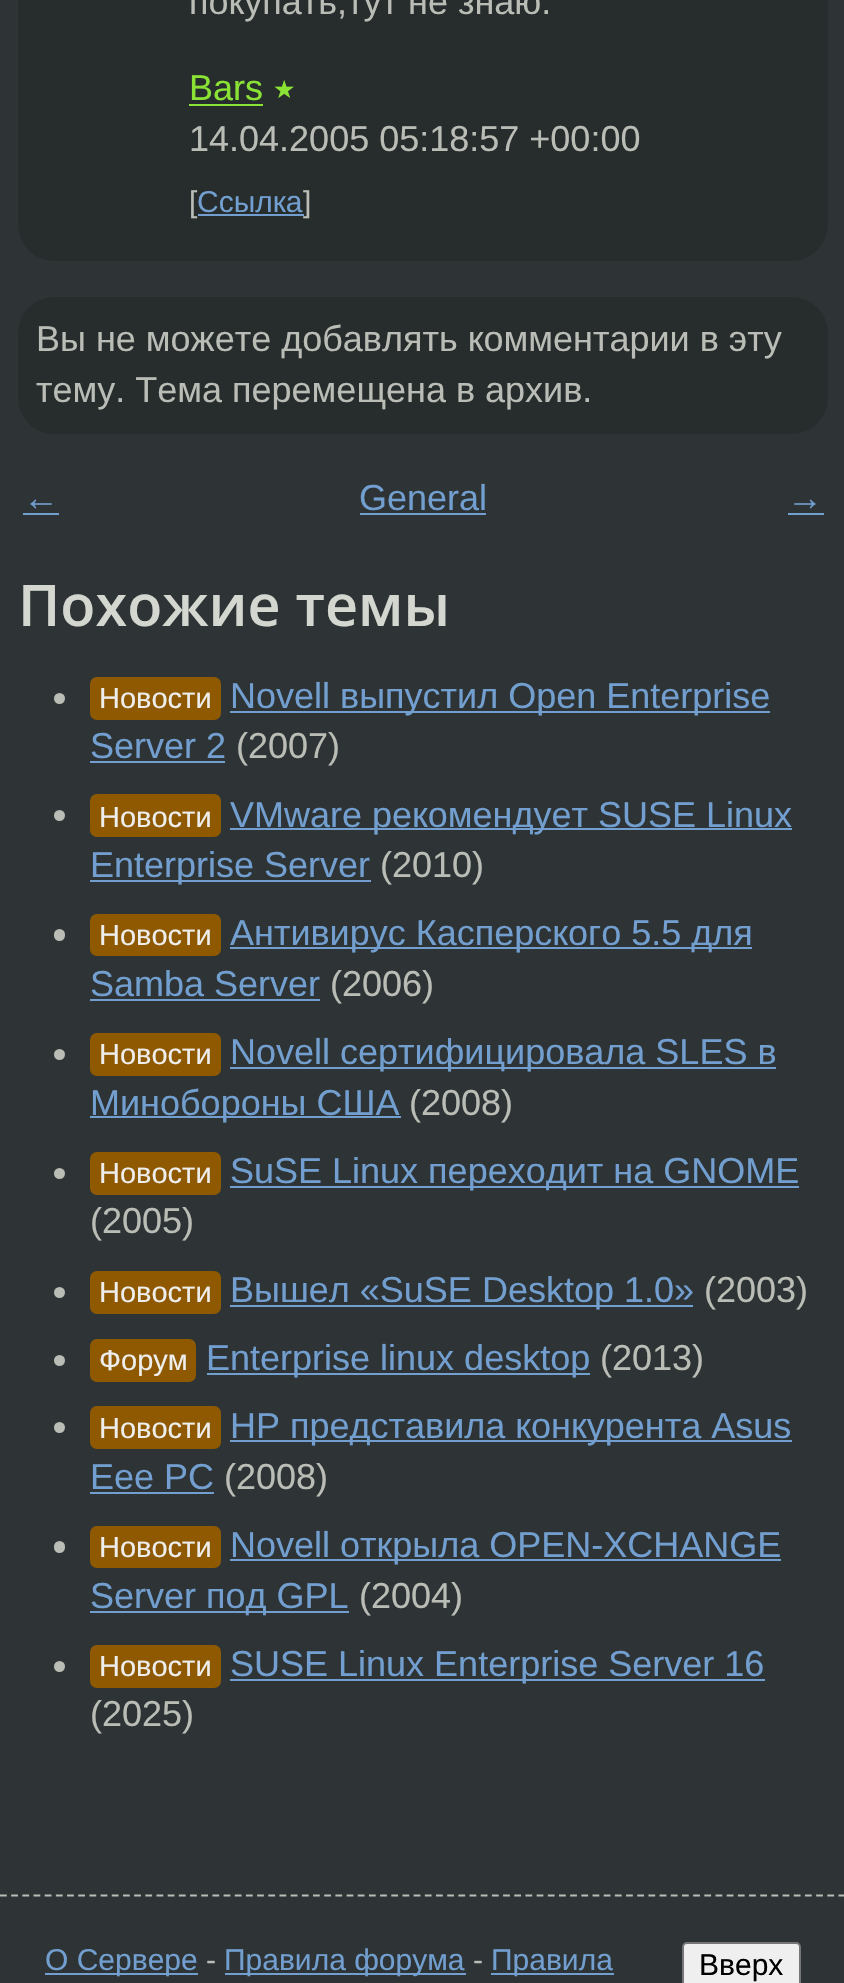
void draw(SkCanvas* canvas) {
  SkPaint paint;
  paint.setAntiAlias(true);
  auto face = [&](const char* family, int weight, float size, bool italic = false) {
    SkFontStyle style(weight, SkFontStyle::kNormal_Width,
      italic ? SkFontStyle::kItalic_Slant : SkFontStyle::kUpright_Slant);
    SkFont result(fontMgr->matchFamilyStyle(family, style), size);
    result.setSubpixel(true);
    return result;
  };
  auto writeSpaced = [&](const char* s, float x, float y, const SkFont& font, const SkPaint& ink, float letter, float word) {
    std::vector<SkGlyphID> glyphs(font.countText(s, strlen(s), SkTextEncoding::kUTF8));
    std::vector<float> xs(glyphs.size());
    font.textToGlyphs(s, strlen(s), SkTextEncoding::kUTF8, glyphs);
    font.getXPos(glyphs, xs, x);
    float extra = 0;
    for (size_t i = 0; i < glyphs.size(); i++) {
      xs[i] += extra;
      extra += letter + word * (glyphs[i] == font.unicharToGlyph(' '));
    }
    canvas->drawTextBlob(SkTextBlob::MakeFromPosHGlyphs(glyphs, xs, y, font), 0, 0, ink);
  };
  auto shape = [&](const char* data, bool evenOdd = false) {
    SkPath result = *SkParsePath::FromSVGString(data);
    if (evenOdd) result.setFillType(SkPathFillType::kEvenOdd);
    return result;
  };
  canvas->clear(0xff2e3436);
  paint.setColor(0xff272c2d);
  canvas->drawRoundRect(SkRect::MakeXYWH(18, -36, 810, 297), 36, 36, paint);
  paint.setColor(0xff8ae234);
  canvas->drawRect(SkRect::MakeXYWH(189, 104, 74, 2), paint);
  paint.setColor(0xff729fcf);
  canvas->drawRect(SkRect::MakeXYWH(198, 214, 106, 2), paint);
  paint.setColor(0xff272c2d);
  canvas->drawRoundRect(SkRect::MakeXYWH(18, 297, 810, 137), 36, 36, paint);
  {
    const struct { float x, y, w, h; SkColor color; } items[] = {
      {23, 513, 36, 2, 0xff729fcf},
      {360, 513, 126, 2, 0xff729fcf},
      {788, 513, 36, 2, 0xff729fcf},
    };
    for (auto [x, y, w, h, color] : items) {
      paint.setColor(color);
      canvas->drawRect(SkRect::MakeXYWH(x, y, w, h), paint);
    }
  }
  paint.setColor(0xffbabdb6);
  canvas->drawCircle(59.5f, 698.5f, 5.5f, paint);
  paint.setColor(0xff8f5902);
  canvas->drawRoundRect(SkRect::MakeXYWH(90, 677, 131, 43), 7, 7, paint);
  paint.setColor(0xff729fcf);
  canvas->drawRect(SkRect::MakeXYWH(230, 711, 540, 2), paint);
  canvas->drawRect(SkRect::MakeXYWH(90, 761, 135, 2), paint);
  paint.setColor(0xffbabdb6);
  canvas->drawCircle(59.5f, 815.5f, 5.5f, paint);
  paint.setColor(0xff8f5902);
  canvas->drawRoundRect(SkRect::MakeXYWH(90, 794, 131, 43), 7, 7, paint);
  paint.setColor(0xff729fcf);
  canvas->drawRect(SkRect::MakeXYWH(230, 828, 562, 2), paint);
  canvas->drawRect(SkRect::MakeXYWH(90, 880, 281, 2), paint);
  paint.setColor(0xffbabdb6);
  canvas->drawRoundRect(SkRect::MakeXYWH(54, 929, 11, 12), 5.5f, 5.5f, paint);
  paint.setColor(0xff8f5902);
  canvas->drawRoundRect(SkRect::MakeXYWH(90, 914, 131, 42), 7, 7, paint);
  paint.setColor(0xff729fcf);
  canvas->drawRect(SkRect::MakeXYWH(230, 947, 522, 2), paint);
  canvas->drawRect(SkRect::MakeXYWH(90, 999, 230, 2), paint);
  paint.setColor(0xffbabdb6);
  canvas->drawCircle(59.5f, 1054.5f, 5.5f, paint);
  paint.setColor(0xff8f5902);
  canvas->drawRoundRect(SkRect::MakeXYWH(90, 1033, 131, 43), 7, 7, paint);
  paint.setColor(0xff729fcf);
  canvas->drawRect(SkRect::MakeXYWH(230, 1067, 546, 2), paint);
  canvas->drawRect(SkRect::MakeXYWH(90, 1116, 311, 2), paint);
  paint.setColor(0xffbabdb6);
  canvas->drawCircle(59.5f, 1173.5f, 5.5f, paint);
  paint.setColor(0xff8f5902);
  canvas->drawRoundRect(SkRect::MakeXYWH(90, 1152, 131, 43), 7, 7, paint);
  paint.setColor(0xff729fcf);
  canvas->drawRect(SkRect::MakeXYWH(230, 1186, 569, 2), paint);
  paint.setColor(0xffbabdb6);
  canvas->drawCircle(59.5f, 1292.5f, 5.5f, paint);
  paint.setColor(0xff8f5902);
  canvas->drawRoundRect(SkRect::MakeXYWH(90, 1271, 131, 43), 7, 7, paint);
  paint.setColor(0xff729fcf);
  canvas->drawRect(SkRect::MakeXYWH(230, 1305, 463, 2), paint);
  paint.setColor(0xffbabdb6);
  canvas->drawCircle(59.5f, 1360.5f, 5.5f, paint);
  paint.setColor(0xff8f5902);
  canvas->drawRoundRect(SkRect::MakeXYWH(90, 1339, 106, 43), 7, 7, paint);
  paint.setColor(0xff729fcf);
  canvas->drawRect(SkRect::MakeXYWH(207, 1373, 383, 2), paint);
  paint.setColor(0xffbabdb6);
  canvas->drawCircle(59.5f, 1427.5f, 5.5f, paint);
  paint.setColor(0xff8f5902);
  canvas->drawRoundRect(SkRect::MakeXYWH(90, 1406, 131, 43), 7, 7, paint);
  paint.setColor(0xff729fcf);
  canvas->drawRect(SkRect::MakeXYWH(230, 1440, 562, 2), paint);
  canvas->drawRect(SkRect::MakeXYWH(90, 1492, 124, 2), paint);
  paint.setColor(0xffbabdb6);
  canvas->drawRoundRect(SkRect::MakeXYWH(54, 1541, 11, 12), 5.5f, 5.5f, paint);
  paint.setColor(0xff8f5902);
  canvas->drawRoundRect(SkRect::MakeXYWH(90, 1526, 131, 42), 7, 7, paint);
  paint.setColor(0xff729fcf);
  canvas->drawRect(SkRect::MakeXYWH(230, 1559, 551, 2), paint);
  canvas->drawRect(SkRect::MakeXYWH(90, 1611, 259, 2), paint);
  paint.setColor(0xffbabdb6);
  canvas->drawCircle(59.5f, 1666.5f, 5.5f, paint);
  paint.setColor(0xff8f5902);
  canvas->drawRoundRect(SkRect::MakeXYWH(90, 1645, 131, 43), 7, 7, paint);
  paint.setColor(0xff729fcf);
  canvas->drawRect(SkRect::MakeXYWH(230, 1679, 535, 2), paint);
  paint.setStroke(true);
  paint.setStrokeWidth(2.2f);
  paint.setColor(0xffbabdb6);
  paint.setPathEffect(SkDashPathEffect::Make({{6.75f, 4.43f}}, 0));
  canvas->drawPath(shape("M0 1895.5H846"), paint);
  paint.setPathEffect(nullptr);
  paint.setStroke(false);
  {
    const struct { float x, y, w, h; SkColor color; } items[] = {
      {45, 1973, 153, 2, 0xff729fcf},
      {225, 1973, 241, 2, 0xff729fcf},
      {491, 1973, 123, 2, 0xff729fcf},
    };
    for (auto [x, y, w, h, color] : items) {
      paint.setColor(color);
      canvas->drawRect(SkRect::MakeXYWH(x, y, w, h), paint);
    }
  }
  paint.setColor(0xffefefef);
  canvas->drawRoundRect(SkRect::MakeXYWH(683, 1943, 117, 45), 4, 4, paint);
  paint.setStroke(true);
  paint.setStrokeWidth(2);
  paint.setColor(0xff767676);
  canvas->drawRoundRect(SkRect::MakeXYWH(683, 1943, 117, 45), 4, 4, paint);
  auto f0 = face("Liberation Sans", 400, 36);
  paint.setStroke(false);
  paint.setColor(0xffbabdb6);
  canvas->drawString("покупать,тут не знаю.", 189, 14, f0, paint);
  paint.setColor(0xff8ae234);
  canvas->drawString("Bars", 189, 100, f0, paint);
  auto f1 = face("DejaVu Sans", 400, 25);
  writeSpaced("★", 273, 98, f1, paint, 4, 0);
  paint.setColor(0xffbabdb6);
  canvas->drawString("14.04.2005 05:18:57 +00:00", 189, 151, f0, paint);
  auto f2 = face("Liberation Sans", 400, 30);
  canvas->drawString("[", 189, 212, f2, paint);
  paint.setColor(0xff729fcf);
  canvas->drawString("Ссылка", 197, 212, f2, paint);
  paint.setColor(0xffbabdb6);
  canvas->drawString("]", 303, 212, f2, paint);
  canvas->drawString("Вы не можете добавлять комментарии в эту", 36, 351, f0, paint);
  canvas->drawString("тему. Тема перемещена в архив.", 36, 402, f0, paint);
  paint.setColor(0xff729fcf);
  {
    const struct { const char* s; float x, y; } items[] = {
      {"←", 23, 510},
      {"General", 359, 510},
      {"→", 787, 510},
    };
    for (auto [s, x, y] : items) {
      canvas->drawString(s, x, y, f0, paint);
    }
  }
  auto f3 = face("Open Sans", 600, 57.5f);
  paint.setColor(0xffd3d7cf);
  canvas->drawString("Похожие темы", 18, 626, f3, paint);
  auto f4 = face("Liberation Sans", 400, 29);
  paint.setColor(0xffeeeeec);
  canvas->drawString("Новости", 99, 708, f4, paint);
  paint.setColor(0xff729fcf);
  canvas->drawString("Novell выпустил Open Enterprise", 230, 708, f0, paint);
  canvas->drawString("Server 2", 90, 758, f0, paint);
  paint.setColor(0xffbabdb6);
  canvas->drawString("(2007)", 236, 758, f0, paint);
  paint.setColor(0xffeeeeec);
  canvas->drawString("Новости", 99, 827, f4, paint);
  paint.setColor(0xff729fcf);
  canvas->drawString("VMware рекомендует SUSE Linux", 230, 827, f0, paint);
  canvas->drawString("Enterprise Server", 90, 877, f0, paint);
  paint.setColor(0xffbabdb6);
  canvas->drawString("(2010)", 380, 877, f0, paint);
  paint.setColor(0xffeeeeec);
  canvas->drawString("Новости", 99, 945, f4, paint);
  paint.setColor(0xff729fcf);
  canvas->drawString("Антивирус Касперского 5.5 для", 230, 945, f0, paint);
  canvas->drawString("Samba Server", 90, 996, f0, paint);
  paint.setColor(0xffbabdb6);
  canvas->drawString("(2006)", 330, 996, f0, paint);
  paint.setColor(0xffeeeeec);
  canvas->drawString("Новости", 99, 1064, f4, paint);
  paint.setColor(0xff729fcf);
  canvas->drawString("Novell сертифицировала SLES в", 230, 1064, f0, paint);
  canvas->drawString("Минобороны США", 90, 1115, f0, paint);
  paint.setColor(0xffbabdb6);
  canvas->drawString("(2008)", 409, 1115, f0, paint);
  paint.setColor(0xffeeeeec);
  canvas->drawString("Новости", 99, 1183, f4, paint);
  paint.setColor(0xff729fcf);
  canvas->drawString("SuSE Linux переходит на GNOME", 230, 1183, f0, paint);
  paint.setColor(0xffbabdb6);
  canvas->drawString("(2005)", 90, 1233, f0, paint);
  paint.setColor(0xffeeeeec);
  canvas->drawString("Новости", 99, 1302, f4, paint);
  paint.setColor(0xff729fcf);
  canvas->drawString("Вышел «SuSE Desktop 1.0»", 230, 1302, f0, paint);
  paint.setColor(0xffbabdb6);
  canvas->drawString("(2003)", 704, 1302, f0, paint);
  paint.setColor(0xffeeeeec);
  canvas->drawString("Форум", 99, 1370, f4, paint);
  paint.setColor(0xff729fcf);
  canvas->drawString("Enterprise linux desktop", 206, 1370, f0, paint);
  paint.setColor(0xffbabdb6);
  canvas->drawString("(2013)", 600, 1370, f0, paint);
  paint.setColor(0xffeeeeec);
  canvas->drawString("Новости", 99, 1438, f4, paint);
  paint.setColor(0xff729fcf);
  canvas->drawString("HP представила конкурента Asus", 230, 1438, f0, paint);
  canvas->drawString("Eee PC", 90, 1489, f0, paint);
  paint.setColor(0xffbabdb6);
  canvas->drawString("(2008)", 224, 1489, f0, paint);
  paint.setColor(0xffeeeeec);
  canvas->drawString("Новости", 99, 1557, f4, paint);
  paint.setColor(0xff729fcf);
  canvas->drawString("Novell открыла OPEN-XCHANGE", 230, 1557, f0, paint);
  canvas->drawString("Server под GPL", 90, 1608, f0, paint);
  paint.setColor(0xffbabdb6);
  canvas->drawString("(2004)", 359, 1608, f0, paint);
  paint.setColor(0xffeeeeec);
  canvas->drawString("Новости", 99, 1676, f4, paint);
  paint.setColor(0xff729fcf);
  canvas->drawString("SUSE Linux Enterprise Server 16", 230, 1676, f0, paint);
  paint.setColor(0xffbabdb6);
  canvas->drawString("(2025)", 90, 1726, f0, paint);
  paint.setColor(0xff729fcf);
  canvas->drawString("О Сервере", 45, 1970, f2, paint);
  paint.setColor(0xffbabdb6);
  canvas->drawString("-", 206, 1970, f2, paint);
  paint.setColor(0xff729fcf);
  canvas->drawString("Правила форума", 224, 1970, f2, paint);
  paint.setColor(0xffbabdb6);
  canvas->drawString("-", 473, 1970, f2, paint);
  paint.setColor(0xff729fcf);
  canvas->drawString("Правила", 491, 1970, f2, paint);
  paint.setColor(0xff000000);
  canvas->drawString("Вверх", 699, 1975, f2, paint);
}
